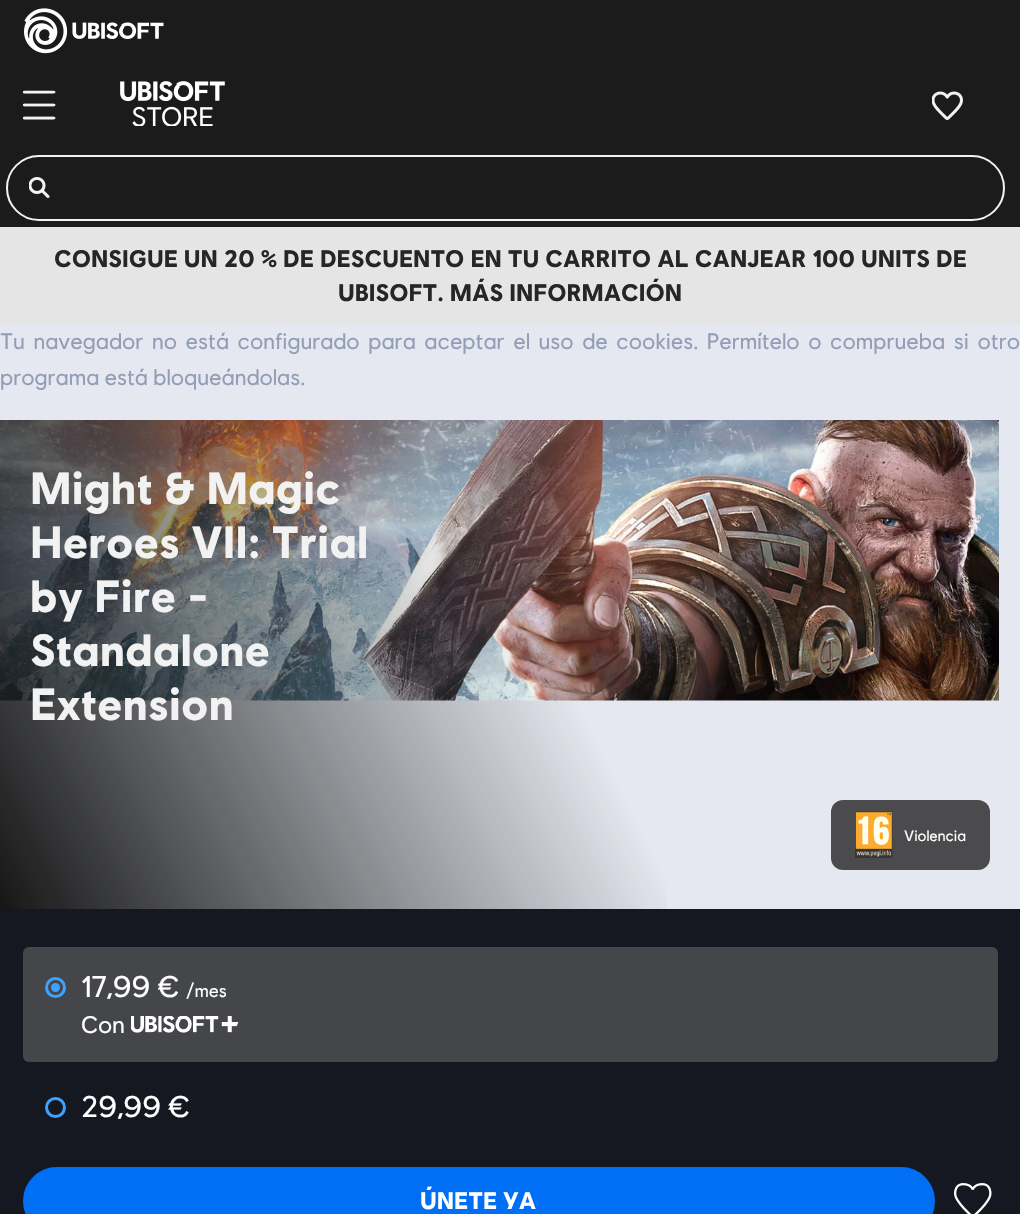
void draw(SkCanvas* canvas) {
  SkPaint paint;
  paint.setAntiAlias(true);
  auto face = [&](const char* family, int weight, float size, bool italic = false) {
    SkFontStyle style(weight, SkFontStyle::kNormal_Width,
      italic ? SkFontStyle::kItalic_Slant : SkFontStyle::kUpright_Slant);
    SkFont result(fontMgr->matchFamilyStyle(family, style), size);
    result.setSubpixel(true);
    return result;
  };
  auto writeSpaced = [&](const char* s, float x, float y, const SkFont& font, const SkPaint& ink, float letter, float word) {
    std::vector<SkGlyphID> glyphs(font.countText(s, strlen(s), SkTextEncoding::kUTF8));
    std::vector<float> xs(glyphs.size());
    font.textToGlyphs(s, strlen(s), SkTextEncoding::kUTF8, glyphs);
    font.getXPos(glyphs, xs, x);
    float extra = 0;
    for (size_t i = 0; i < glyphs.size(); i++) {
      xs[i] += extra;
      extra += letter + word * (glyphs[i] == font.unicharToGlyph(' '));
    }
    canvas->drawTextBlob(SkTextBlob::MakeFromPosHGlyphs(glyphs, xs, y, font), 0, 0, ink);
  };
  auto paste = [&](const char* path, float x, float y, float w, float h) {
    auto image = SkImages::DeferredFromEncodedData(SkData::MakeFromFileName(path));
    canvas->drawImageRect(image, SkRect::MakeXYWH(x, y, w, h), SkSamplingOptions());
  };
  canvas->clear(0xffe5e8f0);
  paint.setColor(0xff1b1b1b);
  canvas->drawRect(SkRect::MakeXYWH(0, 0, 1020, 227), paint);
  paste("img/1.png", 24, 8, 140, 46);
  paste("img/2.png", 23, 90, 33, 30);
  paste("img/3.png", 120, 81, 105, 45);
  paste("img/4.png", 932, 91, 31, 29);
  paint.setStroke(true);
  paint.setStrokeWidth(2);
  paint.setColor(0xfff2f2f2);
  canvas->drawRoundRect(SkRect::MakeXYWH(7, 156, 997, 64), 32, 32, paint);
  paste("img/5.png", 29, 177, 21, 21);
  paint.setStroke(false);
  paint.setColor(0xffe5e5e5);
  canvas->drawRect(SkRect::MakeXYWH(0, 227, 1020, 97), paint);
  paste("img/6.png", 0, 420, 999, 281);
  {
    const SkColor colors[] = {0x000d0d0d, 0xf50d0d0d};
    const float stops[] = {0.46f, 1};
    const SkPoint ends[] = {{1016, 412}, {4.2f, 917}};
    paint.setShader(SkGradientShader::MakeLinear(ends, colors, stops, 2, SkTileMode::kClamp));
    paint.setAlpha(255);
  }
  canvas->drawRect(SkRect::MakeXYWH(0, 420, 667, 489), paint);
  paint.setShader(nullptr);
  paint.setColor(0xff4b4b4d);
  canvas->drawRoundRect(SkRect::MakeXYWH(831, 800, 159, 70), 12, 12, paint);
  paste("img/7.png", 855, 811, 38, 47);
  paint.setColor(0xff151820);
  canvas->drawRect(SkRect::MakeXYWH(0, 909, 1020, 305), paint);
  paint.setColor(0xff45464a);
  canvas->drawRoundRect(SkRect::MakeXYWH(23, 947, 975, 115), 6, 6, paint);
  paint.setStroke(true);
  paint.setStrokeWidth(3);
  paint.setColor(0xff3da2ff);
  canvas->drawCircle(55.5f, 987.5f, 9, paint);
  paint.setStroke(false);
  canvas->drawCircle(55.5f, 987.5f, 4.5f, paint);
  paste("img/8.png", 131, 1016, 108, 17);
  paint.setStroke(true);
  canvas->drawCircle(55.5f, 1107.5f, 9, paint);
  paint.setStroke(false);
  paint.setColor(0xff006ef5);
  canvas->drawRoundRect(SkRect::MakeXYWH(24.5f, 1168.5f, 909, 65), 32.5f, 32.5f, paint);
  paint.setStroke(true);
  canvas->drawRoundRect(SkRect::MakeXYWH(24.5f, 1168.5f, 909, 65), 32.5f, 32.5f, paint);
  paste("img/9.png", 954, 1183, 38, 31);
  auto f0 = face("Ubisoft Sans", 700, 24);
  paint.setStroke(false);
  paint.setColor(0xff262626);
  canvas->drawString("CONSIGUE UN 20 % DE DESCUENTO EN TU CARRITO AL CANJEAR 100 UNITS DE", 54, 267, f0, paint);
  canvas->drawString("UBISOFT. MÁS INFORMACIÓN", 338, 301, f0, paint);
  auto f1 = face("Ubisoft Sans", 400, 22.5f);
  paint.setColor(0xff929db6);
  writeSpaced("Tu navegador no está configurado para aceptar el uso de cookies. Permítelo o comprueba si otro", 0, 349, f1, paint, 0, 3.4f);
  canvas->drawString("programa está bloqueándolas.", 0, 385, f1, paint);
  auto f2 = face("Ubisoft Sans", 700, 45);
  paint.setColor(0xfff2f2f2);
  {
    const struct { const char* s; float x, y; } items[] = {
      {"Might & Magic", 30, 504},
      {"Heroes VII: Trial", 30, 558},
      {"by Fire -", 30, 612},
      {"Standalone", 30, 666},
      {"Extension", 30, 720},
    };
    for (auto [s, x, y] : items) {
      canvas->drawString(s, x, y, f2, paint);
    }
  }
  auto f3 = face("Ubisoft Sans", 400, 15);
  paint.setColor(0xffffffff);
  canvas->drawString("Violencia", 904, 841, f3, paint);
  auto f4 = face("Ubisoft Sans", 400, 30);
  canvas->drawString("17,99 €", 81, 997, f4, paint);
  auto f5 = face("Ubisoft Sans", 400, 18);
  canvas->drawString("/mes", 186, 997, f5, paint);
  auto f6 = face("Ubisoft Sans", 400, 24);
  canvas->drawString("Con", 81, 1033, f6, paint);
  canvas->drawString("29,99 €", 81, 1117, f4, paint);
  canvas->drawString("ÚNETE YA", 420, 1209, f0, paint);
}
